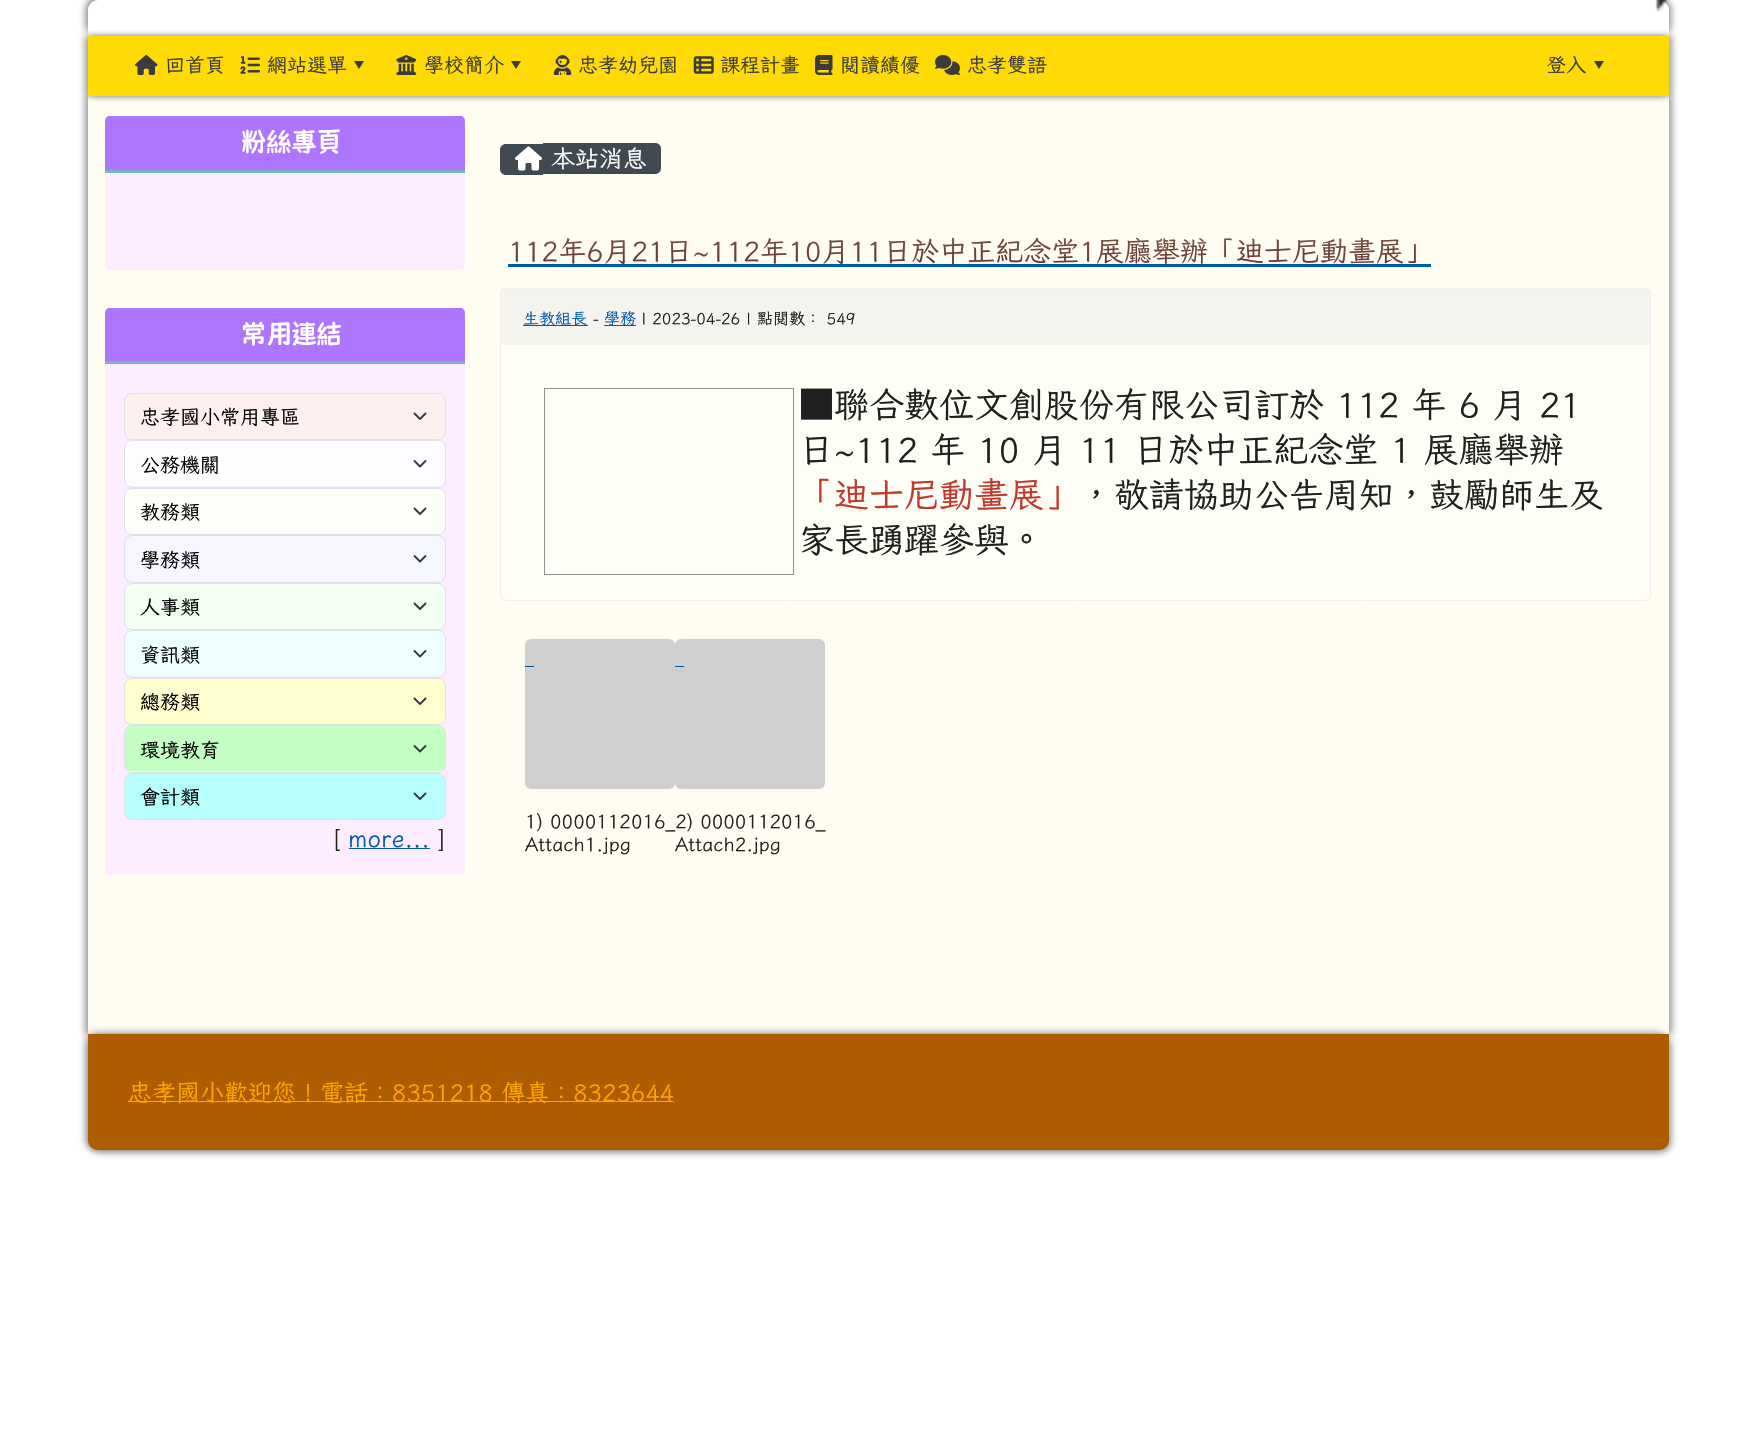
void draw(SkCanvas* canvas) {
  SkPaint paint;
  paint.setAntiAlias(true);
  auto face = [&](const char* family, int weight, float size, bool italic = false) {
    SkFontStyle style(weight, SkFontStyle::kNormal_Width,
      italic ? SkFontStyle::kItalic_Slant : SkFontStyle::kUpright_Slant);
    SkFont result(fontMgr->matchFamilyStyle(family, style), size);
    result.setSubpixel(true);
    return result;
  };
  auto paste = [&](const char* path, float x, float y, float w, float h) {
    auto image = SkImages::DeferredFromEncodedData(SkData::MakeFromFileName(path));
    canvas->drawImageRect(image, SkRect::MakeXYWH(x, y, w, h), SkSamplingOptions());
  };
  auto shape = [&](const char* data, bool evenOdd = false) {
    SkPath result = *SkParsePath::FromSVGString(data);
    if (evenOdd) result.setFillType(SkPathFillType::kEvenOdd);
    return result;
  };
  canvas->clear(0xffffffff);
  canvas->save();
  canvas->clipPath(shape("M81 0H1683V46H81ZM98 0H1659C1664.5 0 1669 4.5 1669 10V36H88V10C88 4.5 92.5 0 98 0Z", true), true);
  paint.setColor(0x33323232);
  paint.setMaskFilter(SkMaskFilter::MakeBlur(kNormal_SkBlurStyle, 3));
  canvas->drawRoundRect(SkRect::MakeXYWH(91, 0, 1582, 36), 10, 10, paint);
  paint.setMaskFilter(nullptr);
  canvas->restore();
  canvas->save();
  canvas->clipPath(shape("M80 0H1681V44H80ZM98 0H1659C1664.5 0 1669 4.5 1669 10V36H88V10C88 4.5 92.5 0 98 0Z", true), true);
  paint.setMaskFilter(SkMaskFilter::MakeBlur(kNormal_SkBlurStyle, 3));
  canvas->drawRoundRect(SkRect::MakeXYWH(90, -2, 1581, 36), 10, 10, paint);
  paint.setMaskFilter(nullptr);
  canvas->restore();
  canvas->save();
  canvas->clipPath(shape("M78 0H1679V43H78ZM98 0H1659C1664.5 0 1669 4.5 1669 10V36H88V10C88 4.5 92.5 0 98 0Z", true), true);
  paint.setMaskFilter(SkMaskFilter::MakeBlur(kNormal_SkBlurStyle, 3));
  canvas->drawRoundRect(SkRect::MakeXYWH(88, -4, 1581, 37), 10, 10, paint);
  paint.setMaskFilter(nullptr);
  canvas->restore();
  canvas->save();
  canvas->clipPath(shape("M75 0H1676V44H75ZM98 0H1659C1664.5 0 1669 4.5 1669 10V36H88V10C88 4.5 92.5 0 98 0Z", true), true);
  paint.setMaskFilter(SkMaskFilter::MakeBlur(kNormal_SkBlurStyle, 3));
  canvas->drawRoundRect(SkRect::MakeXYWH(85, -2, 1581, 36), 10, 10, paint);
  paint.setMaskFilter(nullptr);
  canvas->restore();
  canvas->save();
  canvas->clipPath(shape("M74 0H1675V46H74ZM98 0H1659C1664.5 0 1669 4.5 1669 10V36H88V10C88 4.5 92.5 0 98 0Z", true), true);
  paint.setMaskFilter(SkMaskFilter::MakeBlur(kNormal_SkBlurStyle, 3));
  canvas->drawRoundRect(SkRect::MakeXYWH(84, 0, 1581, 36), 10, 10, paint);
  paint.setMaskFilter(nullptr);
  canvas->restore();
  paste("img/1.png", 1655, 0, 15, 12);
  paint.setColor(0x66323232);
  paint.setMaskFilter(SkMaskFilter::MakeBlur(kNormal_SkBlurStyle, 3));
  canvas->drawRect(SkRect::MakeXYWH(91, 96, 1582, 938), paint);
  paint.setMaskFilter(nullptr);
  paint.setMaskFilter(SkMaskFilter::MakeBlur(kNormal_SkBlurStyle, 3));
  canvas->drawRect(SkRect::MakeXYWH(84, 96, 1581, 938), paint);
  paint.setMaskFilter(nullptr);
  paint.setColor(0xfffffdf1);
  canvas->drawRect(SkRect::MakeXYWH(88, 96, 1581, 938), paint);
  paint.setColor(0x66323232);
  paint.setMaskFilter(SkMaskFilter::MakeBlur(kNormal_SkBlurStyle, 3));
  canvas->drawRect(SkRect::MakeXYWH(91, 36, 1582, 60), paint);
  paint.setMaskFilter(nullptr);
  paint.setMaskFilter(SkMaskFilter::MakeBlur(kNormal_SkBlurStyle, 3));
  canvas->drawRect(SkRect::MakeXYWH(84, 36, 1581, 60), paint);
  paint.setMaskFilter(nullptr);
  paint.setColor(0xffffda05);
  canvas->drawRect(SkRect::MakeXYWH(88, 36, 1581, 60), paint);
  paste("img/2.png", 135, 55, 23, 20);
  paste("img/3.png", 240, 56, 20, 18);
  paint.setColor(0xff3b3b3b);
  canvas->drawPath(shape("M354 61H364L359 69Z"), paint);
  paste("img/4.png", 396, 55, 21, 20);
  canvas->drawPath(shape("M511 61H521L516 69Z"), paint);
  paste("img/5.png", 553, 55, 19, 20);
  paste("img/6.png", 693, 56, 21, 18);
  paste("img/7.png", 815, 55, 18, 20);
  paste("img/8.png", 935, 55, 25, 20);
  canvas->drawPath(shape("M1594 61H1604L1599 69Z"), paint);
  paint.setColor(0xfffeedff);
  canvas->drawRoundRect(SkRect::MakeXYWH(105, 116, 360, 154), 5, 5, paint);
  paint.setColor(0xffae75ff);
  canvas->drawPath(shape("M110 116H460C463 116 465 118 465 121V173H105V121C105 118 107 116 110 116Z"), paint);
  paint.setColor(0xff7cb6b7);
  canvas->drawRect(SkRect::MakeXYWH(105, 170, 360, 3), paint);
  paint.setColor(0xfffeedff);
  canvas->drawRoundRect(SkRect::MakeXYWH(105, 308, 360, 567), 5, 5, paint);
  paint.setColor(0xffae75ff);
  canvas->drawPath(shape("M110 308H460C463 308 465 310 465 313V364H105V313C105 310 107 308 110 308Z"), paint);
  paint.setColor(0xff7cb6b7);
  canvas->drawRect(SkRect::MakeXYWH(105, 361, 360, 3), paint);
  paint.setColor(0xfffff0f0);
  canvas->drawRoundRect(SkRect::MakeXYWH(125, 394, 320, 45), 6, 6, paint);
  paint.setStroke(true);
  paint.setStrokeWidth(1.9f);
  paint.setStrokeCap(SkPaint::kRound_Cap);
  paint.setStrokeJoin(SkPaint::kRound_Join);
  paint.setColor(0xff343a40);
  canvas->drawPath(shape("M414.5 413.5L420 419L425.5 413.5"), paint);
  paint.setStrokeWidth(1);
  paint.setStrokeCap(SkPaint::kButt_Cap);
  paint.setStrokeJoin(SkPaint::kMiter_Join);
  paint.setColor(0xffdee2e6);
  canvas->drawRoundRect(SkRect::MakeXYWH(124.5f, 393.5f, 321, 46), 7.5f, 7.5f, paint);
  paint.setStroke(false);
  paint.setColor(0xfffffcff);
  canvas->drawRoundRect(SkRect::MakeXYWH(125, 441, 320, 45), 6, 6, paint);
  paint.setStroke(true);
  paint.setStrokeWidth(1.9f);
  paint.setStrokeCap(SkPaint::kRound_Cap);
  paint.setStrokeJoin(SkPaint::kRound_Join);
  paint.setColor(0xff343a40);
  canvas->drawPath(shape("M414.5 461L420 466.5L425.5 461"), paint);
  paint.setStrokeWidth(1);
  paint.setStrokeCap(SkPaint::kButt_Cap);
  paint.setStrokeJoin(SkPaint::kMiter_Join);
  paint.setColor(0xffdee2e6);
  canvas->drawRoundRect(SkRect::MakeXYWH(124.5f, 440.5f, 321, 47), 7.5f, 7.5f, paint);
  paint.setStroke(false);
  paint.setColor(0xfffffff9);
  canvas->drawRoundRect(SkRect::MakeXYWH(125, 489, 320, 45), 6, 6, paint);
  paint.setStroke(true);
  paint.setStrokeWidth(1.9f);
  paint.setStrokeCap(SkPaint::kRound_Cap);
  paint.setStrokeJoin(SkPaint::kRound_Join);
  paint.setColor(0xff343a40);
  canvas->drawPath(shape("M414.5 508.5L420 514L425.5 508.5"), paint);
  paint.setStrokeWidth(1);
  paint.setStrokeCap(SkPaint::kButt_Cap);
  paint.setStrokeJoin(SkPaint::kMiter_Join);
  paint.setColor(0xffdee2e6);
  canvas->drawRoundRect(SkRect::MakeXYWH(124.5f, 488.5f, 321, 46), 7.5f, 7.5f, paint);
  paint.setStroke(false);
  paint.setColor(0xfff6f6ff);
  canvas->drawRoundRect(SkRect::MakeXYWH(125, 536, 320, 45), 6, 6, paint);
  paint.setStroke(true);
  paint.setStrokeWidth(1.9f);
  paint.setStrokeCap(SkPaint::kRound_Cap);
  paint.setStrokeJoin(SkPaint::kRound_Join);
  paint.setColor(0xff343a40);
  canvas->drawPath(shape("M414.5 556L420 561.5L425.5 556"), paint);
  paint.setStrokeWidth(1);
  paint.setStrokeCap(SkPaint::kButt_Cap);
  paint.setStrokeJoin(SkPaint::kMiter_Join);
  paint.setColor(0xffdee2e6);
  canvas->drawRoundRect(SkRect::MakeXYWH(124.5f, 535.5f, 321, 47), 7.5f, 7.5f, paint);
  paint.setStroke(false);
  paint.setColor(0xfff3fff3);
  canvas->drawRoundRect(SkRect::MakeXYWH(125, 584, 320, 45), 6, 6, paint);
  paint.setStroke(true);
  paint.setStrokeWidth(1.9f);
  paint.setStrokeCap(SkPaint::kRound_Cap);
  paint.setStrokeJoin(SkPaint::kRound_Join);
  paint.setColor(0xff343a40);
  canvas->drawPath(shape("M414.5 603.5L420 609L425.5 603.5"), paint);
  paint.setStrokeWidth(1);
  paint.setStrokeCap(SkPaint::kButt_Cap);
  paint.setStrokeJoin(SkPaint::kMiter_Join);
  paint.setColor(0xffdee2e6);
  canvas->drawRoundRect(SkRect::MakeXYWH(124.5f, 583.5f, 321, 46), 7.5f, 7.5f, paint);
  paint.setStroke(false);
  paint.setColor(0xffedffff);
  canvas->drawRoundRect(SkRect::MakeXYWH(125, 631, 320, 45), 6, 6, paint);
  paint.setStroke(true);
  paint.setStrokeWidth(1.9f);
  paint.setStrokeCap(SkPaint::kRound_Cap);
  paint.setStrokeJoin(SkPaint::kRound_Join);
  paint.setColor(0xff343a40);
  canvas->drawPath(shape("M414.5 651L420 656.5L425.5 651"), paint);
  paint.setStrokeWidth(1);
  paint.setStrokeCap(SkPaint::kButt_Cap);
  paint.setStrokeJoin(SkPaint::kMiter_Join);
  paint.setColor(0xffdee2e6);
  canvas->drawRoundRect(SkRect::MakeXYWH(124.5f, 630.5f, 321, 47), 7.5f, 7.5f, paint);
  paint.setStroke(false);
  paint.setColor(0xffffffcf);
  canvas->drawRoundRect(SkRect::MakeXYWH(125, 679, 320, 45), 6, 6, paint);
  paint.setStroke(true);
  paint.setStrokeWidth(1.9f);
  paint.setStrokeCap(SkPaint::kRound_Cap);
  paint.setStrokeJoin(SkPaint::kRound_Join);
  paint.setColor(0xff343a40);
  canvas->drawPath(shape("M414.5 698.5L420 704L425.5 698.5"), paint);
  paint.setStrokeWidth(1);
  paint.setStrokeCap(SkPaint::kButt_Cap);
  paint.setStrokeJoin(SkPaint::kMiter_Join);
  paint.setColor(0xffdee2e6);
  canvas->drawRoundRect(SkRect::MakeXYWH(124.5f, 678.5f, 321, 46), 7.5f, 7.5f, paint);
  paint.setStroke(false);
  paint.setColor(0xffc3ffc3);
  canvas->drawRoundRect(SkRect::MakeXYWH(125, 726, 320, 45), 6, 6, paint);
  paint.setStroke(true);
  paint.setStrokeWidth(1.9f);
  paint.setStrokeCap(SkPaint::kRound_Cap);
  paint.setStrokeJoin(SkPaint::kRound_Join);
  paint.setColor(0xff343a40);
  canvas->drawPath(shape("M414.5 746L420 751.5L425.5 746"), paint);
  paint.setStrokeWidth(1);
  paint.setStrokeCap(SkPaint::kButt_Cap);
  paint.setStrokeJoin(SkPaint::kMiter_Join);
  paint.setColor(0xffdee2e6);
  canvas->drawRoundRect(SkRect::MakeXYWH(124.5f, 725.5f, 321, 47), 7.5f, 7.5f, paint);
  paint.setStroke(false);
  paint.setColor(0xffb7ffff);
  canvas->drawRoundRect(SkRect::MakeXYWH(125, 774, 320, 45), 6, 6, paint);
  paint.setStroke(true);
  paint.setStrokeWidth(1.9f);
  paint.setStrokeCap(SkPaint::kRound_Cap);
  paint.setStrokeJoin(SkPaint::kRound_Join);
  paint.setColor(0xff343a40);
  canvas->drawPath(shape("M414.5 793.5L420 799L425.5 793.5"), paint);
  paint.setStrokeWidth(1);
  paint.setStrokeCap(SkPaint::kButt_Cap);
  paint.setStrokeJoin(SkPaint::kMiter_Join);
  paint.setColor(0xffdee2e6);
  canvas->drawRoundRect(SkRect::MakeXYWH(124.5f, 773.5f, 321, 46), 7.5f, 7.5f, paint);
  paint.setStroke(false);
  paint.setColor(0xff005ca8);
  canvas->drawRect(SkRect::MakeXYWH(349, 848, 81, 1), paint);
  paint.setColor(0xff404a50);
  canvas->drawPath(shape("M506 144H543V175H506C502.5 175 500 172.5 500 169V150C500 146.5 502.5 144 506 144Z"), paint);
  canvas->drawPath(shape("M543 143H655C658.5 143 661 145.5 661 149V168C661 171.5 658.5 174 655 174H543Z"), paint);
  paste("img/9.png", 515, 146, 27, 25);
  paint.setColor(0xff005ca8);
  canvas->drawRect(SkRect::MakeXYWH(508, 264, 923, 3), paint);
  paint.setColor(0xfffffef6);
  canvas->drawRoundRect(SkRect::MakeXYWH(500.5f, 288.5f, 1150, 312), 5.5f, 5.5f, paint);
  paint.setStroke(true);
  paint.setColor(0xffefefef);
  canvas->drawRoundRect(SkRect::MakeXYWH(500.5f, 288.5f, 1150, 312), 5.5f, 5.5f, paint);
  paint.setStroke(false);
  {
    const struct { float x, y, w, h; SkColor color; } items[] = {
      {501, 289, 1149, 56, 0x33c8c8c8},
      {523, 325, 65, 1, 0xff005ca8},
      {604, 325, 32, 1, 0xff005ca8},
    };
    for (auto [x, y, w, h, color] : items) {
      paint.setColor(color);
      canvas->drawRect(SkRect::MakeXYWH(x, y, w, h), paint);
    }
  }
  paint.setStroke(true);
  paint.setColor(0xff909090);
  canvas->drawRect(SkRect::MakeXYWH(544.5f, 388.5f, 249, 186), paint);
  paint.setStroke(false);
  paint.setColor(0xffcfcfcf);
  canvas->drawRoundRect(SkRect::MakeXYWH(525, 639, 150, 150), 6, 6, paint);
  paint.setColor(0xff005ca8);
  canvas->drawRect(SkRect::MakeXYWH(525, 666, 9, 1), paint);
  paint.setColor(0xffcfcfcf);
  canvas->drawRoundRect(SkRect::MakeXYWH(675, 639, 150, 150), 6, 6, paint);
  paint.setColor(0xff005ca8);
  canvas->drawRect(SkRect::MakeXYWH(675, 666, 9, 1), paint);
  paint.setColor(0x33323232);
  paint.setMaskFilter(SkMaskFilter::MakeBlur(kNormal_SkBlurStyle, 3));
  canvas->drawRoundRect(SkRect::MakeXYWH(91, 1034, 1582, 116), 10, 10, paint);
  paint.setMaskFilter(nullptr);
  paint.setMaskFilter(SkMaskFilter::MakeBlur(kNormal_SkBlurStyle, 3));
  canvas->drawRoundRect(SkRect::MakeXYWH(90, 1036, 1581, 117), 10, 10, paint);
  paint.setMaskFilter(nullptr);
  paint.setMaskFilter(SkMaskFilter::MakeBlur(kNormal_SkBlurStyle, 3));
  canvas->drawRoundRect(SkRect::MakeXYWH(88, 1038, 1581, 116), 10, 10, paint);
  paint.setMaskFilter(nullptr);
  paint.setMaskFilter(SkMaskFilter::MakeBlur(kNormal_SkBlurStyle, 3));
  canvas->drawRoundRect(SkRect::MakeXYWH(85, 1031, 1581, 117), 10, 10, paint);
  paint.setMaskFilter(nullptr);
  paint.setMaskFilter(SkMaskFilter::MakeBlur(kNormal_SkBlurStyle, 3));
  canvas->drawRoundRect(SkRect::MakeXYWH(84, 1034, 1581, 116), 10, 10, paint);
  paint.setMaskFilter(nullptr);
  paint.setColor(0xffad5d00);
  canvas->drawPath(shape("M88 1034H1669V1140C1669 1145.5 1664.5 1150 1659 1150H98C92.5 1150 88 1145.5 88 1140Z"), paint);
  paint.setColor(0xffffa500);
  canvas->drawRect(SkRect::MakeXYWH(128, 1101, 546, 1), paint);
  auto f0 = face("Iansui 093", 400, 20);
  paint.setColor(0xff3b3b3b);
  {
    const struct { const char* s; float x, y; } items[] = {
      {"回首頁", 165, 72},
      {"網站選單", 267, 72},
      {"學校簡介", 424, 72},
      {"忠孝幼兒園", 578, 72},
      {"課程計畫", 720, 72},
      {"閱讀績優", 840, 72},
      {"忠孝雙語", 967, 72},
      {"登入", 1546, 72},
    };
    for (auto [s, x, y] : items) {
      canvas->drawString(s, x, y, f0, paint);
    }
  }
  auto f1 = face("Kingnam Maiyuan", 400, 28);
  paint.setColor(0xffffffff);
  canvas->drawString("粉絲專頁", 241, 150, f1, paint);
  canvas->drawString("常用連結", 241, 342, f1, paint);
  paint.setColor(0xff000000);
  {
    const struct { const char* s; float x, y; } items[] = {
      {"忠孝國小常用專區", 140, 424},
      {"公務機關", 140, 472},
      {"教務類", 140, 519},
      {"學務類", 140, 567},
      {"人事類", 140, 614},
      {"資訊類", 140, 662},
      {"總務類", 140, 709},
      {"環境教育", 140, 757},
      {"會計類", 140, 804},
    };
    for (auto [s, x, y] : items) {
      canvas->drawString(s, x, y, f0, paint);
    }
  }
  auto f2 = face("Iansui 093", 400, 24);
  paint.setColor(0xff202020);
  canvas->drawString("[", 332, 847, f2, paint);
  paint.setColor(0xff005ca8);
  canvas->drawString("more...", 348, 847, f2, paint);
  paint.setColor(0xff202020);
  canvas->drawString("]", 438, 847, f2, paint);
  paint.setColor(0xffffffff);
  canvas->drawString("本站消息", 551, 167, f2, paint);
  auto f3 = face("Iansui 093", 400, 28);
  {
    const SkColor colors[] = {0xff7e5c40, 0xff5c2938};
    const float stops[] = {0, 1};
    const SkPoint ends[] = {{1076, 227}, {1076, 276}};
    paint.setShader(SkGradientShader::MakeLinear(ends, colors, stops, 2, SkTileMode::kClamp));
    paint.setAlpha(255);
  }
  canvas->drawString("112年6月21日~112年10月11日於中正紀念堂1展廳舉辦「迪士尼動畫展」", 508, 261, f3, paint);
  auto f4 = face("Iansui 093", 400, 16);
  paint.setShader(nullptr);
  paint.setColor(0xff005ca8);
  canvas->drawString("生教組長", 523, 324, f4, paint);
  paint.setColor(0xff202020);
  canvas->drawString("-", 593, 324, f4, paint);
  paint.setColor(0xff005ca8);
  canvas->drawString("學務", 604, 324, f4, paint);
  paint.setColor(0xff202020);
  canvas->drawString("| 2023-04-26 | 點閱數： 549", 641, 324, f4, paint);
  auto f5 = face("Iansui 093", 400, 35);
  canvas->drawString("■聯合數位文創股份有限公司訂於 112 年 6 月 21", 799, 417, f5, paint);
  canvas->drawString("日~112 年 10 月 11 日於中正紀念堂 1 展廳舉辦", 799, 462, f5, paint);
  paint.setColor(0xffc0392b);
  canvas->drawString("「迪士尼動畫展」", 799, 507, f5, paint);
  paint.setColor(0xff202020);
  canvas->drawString("，敬請協助公告周知，鼓勵師生及", 1079, 507, f5, paint);
  canvas->drawString("家長踴躍參與。", 799, 552, f5, paint);
  auto f6 = face("Iansui 093", 400, 19.25f);
  {
    const struct { const char* s; float x, y; } items[] = {
      {"1) 0000112016_2) 0000112016_", 525, 828},
      {"Attach1.jpg", 525, 851},
      {"Attach2.jpg", 675, 851},
    };
    for (auto [s, x, y] : items) {
      canvas->drawString(s, x, y, f6, paint);
    }
  }
  paint.setColor(0xffffa500);
  canvas->drawString("忠孝國小歡迎您！電話：8351218 傳真：8323644", 128, 1101, f2, paint);
}
